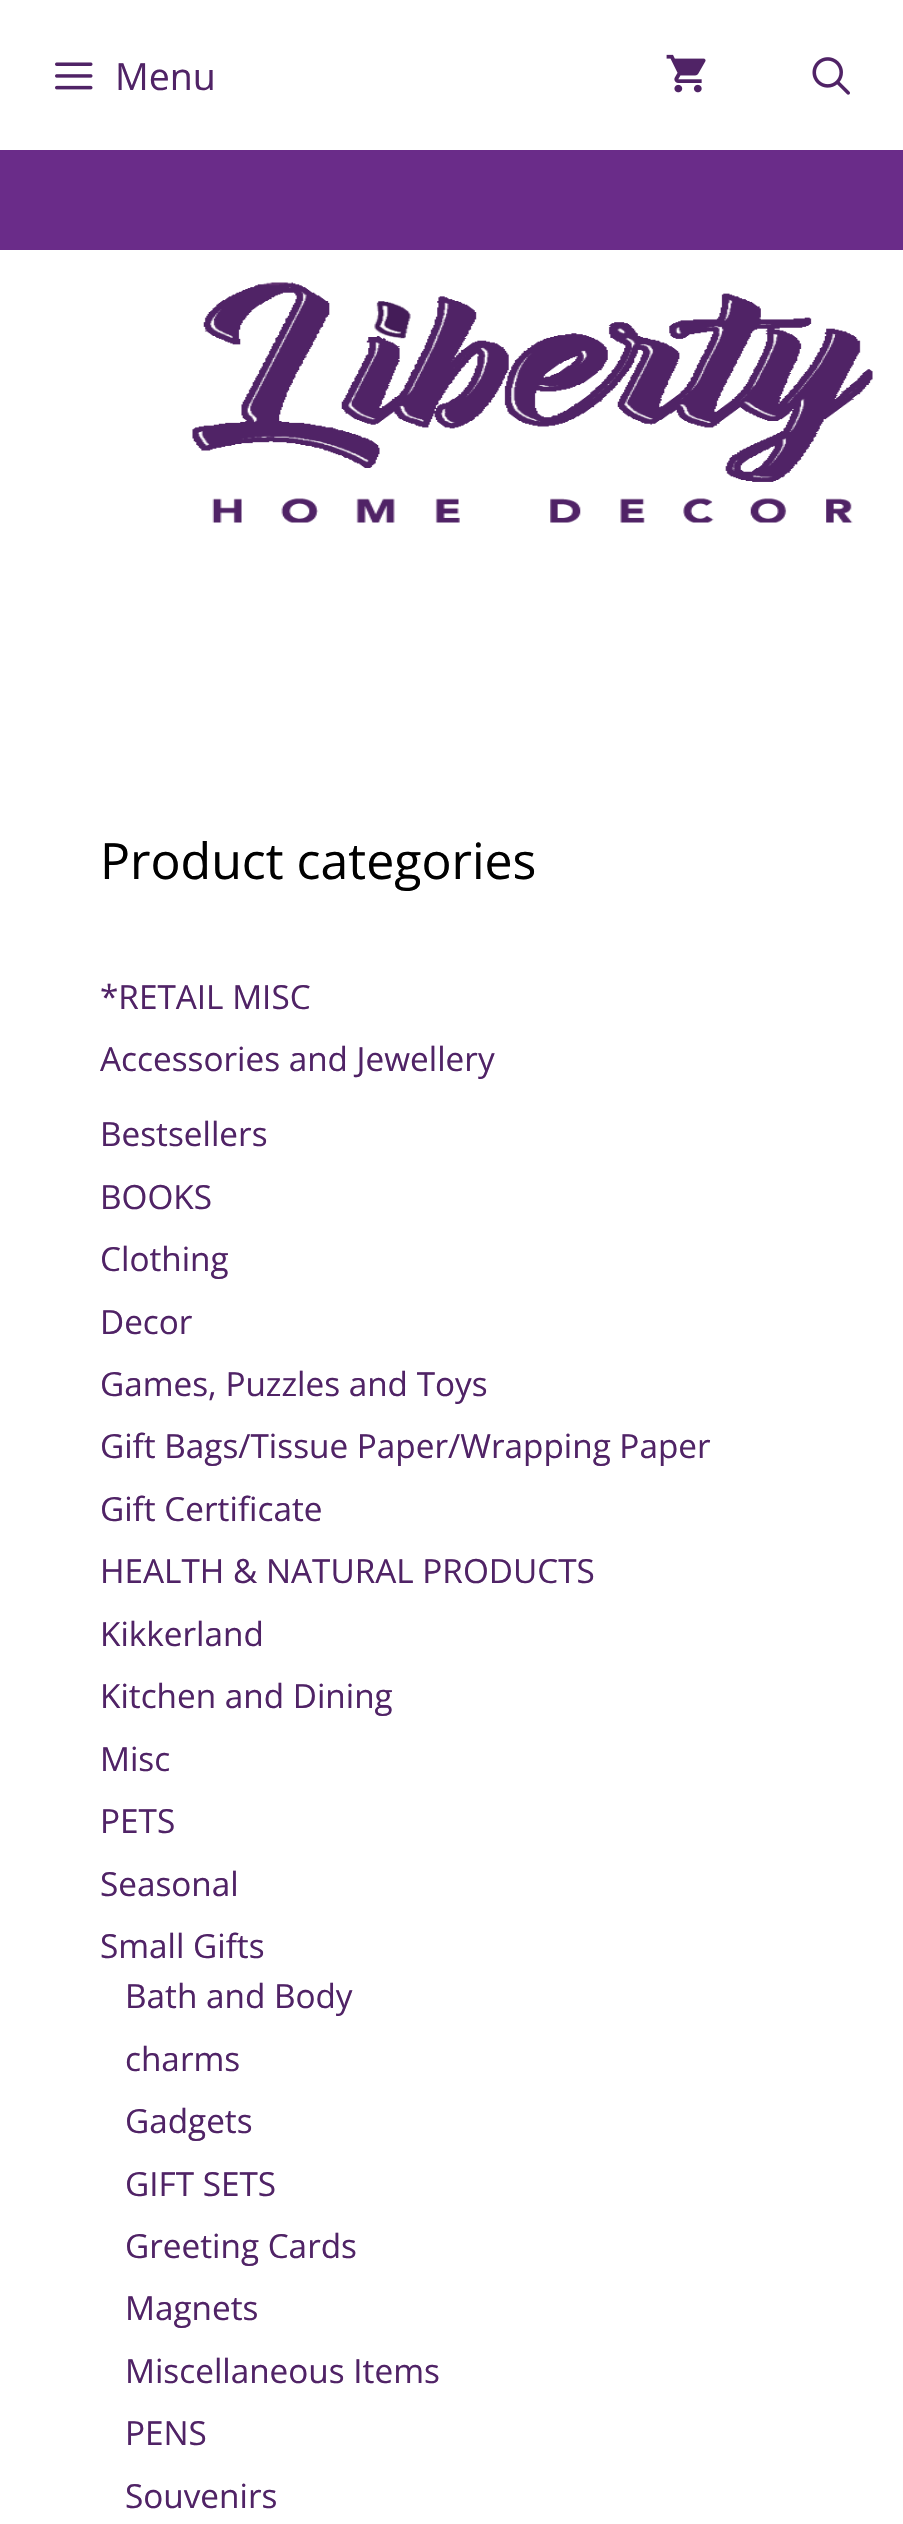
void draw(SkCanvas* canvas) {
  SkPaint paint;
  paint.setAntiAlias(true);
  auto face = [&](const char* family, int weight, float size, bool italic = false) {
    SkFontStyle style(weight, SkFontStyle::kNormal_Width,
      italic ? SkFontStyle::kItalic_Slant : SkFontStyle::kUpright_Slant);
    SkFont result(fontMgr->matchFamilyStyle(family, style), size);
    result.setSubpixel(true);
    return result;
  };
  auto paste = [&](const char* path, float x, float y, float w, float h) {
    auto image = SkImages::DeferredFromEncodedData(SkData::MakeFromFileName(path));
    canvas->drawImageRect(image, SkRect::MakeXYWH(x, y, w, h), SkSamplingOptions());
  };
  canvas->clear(0xffffffff);
  paste("img/1.png", 55, 62, 38, 28);
  paste("img/2.png", 666, 54, 40, 39);
  paste("img/3.png", 812, 57, 38, 38);
  paint.setColor(0xff6a2c89);
  canvas->drawRect(SkRect::MakeXYWH(0, 150, 903, 100), paint);
  paste("img/4.png", 192, 282, 681, 241);
  auto f0 = face("Open Sans", 400, 37.5f);
  paint.setColor(0xff502366);
  canvas->drawString("Menu", 115, 90, f0, paint);
  auto f1 = face("Open Sans", 400, 50);
  paint.setColor(0xff000000);
  canvas->drawString("Product categories", 100, 879, f1, paint);
  auto f2 = face("Open Sans", 400, 33.3f);
  paint.setColor(0xff502366);
  {
    const struct { const char* s; float x, y; } items[] = {
      {"*RETAIL MISC", 100, 1009},
      {"Accessories and Jewellery", 100, 1071},
      {"Bestsellers", 100, 1146},
      {"BOOKS", 100, 1209},
      {"Clothing", 100, 1271},
      {"Decor", 100, 1334},
      {"Games, Puzzles and Toys", 100, 1396},
      {"Gift Bags/Tissue Paper/Wrapping Paper", 100, 1458},
      {"Gift Certificate", 100, 1521},
      {"HEALTH & NATURAL PRODUCTS", 100, 1583},
      {"Kikkerland", 100, 1646},
      {"Kitchen and Dining", 100, 1708},
      {"Misc", 100, 1771},
      {"PETS", 100, 1833},
      {"Seasonal", 100, 1896},
      {"Small Gifts", 100, 1958},
      {"Bath and Body", 125, 2008},
      {"charms", 125, 2071},
      {"Gadgets", 125, 2133},
      {"GIFT SETS", 125, 2196},
      {"Greeting Cards", 125, 2258},
      {"Magnets", 125, 2320},
      {"Miscellaneous Items", 125, 2383},
      {"PENS", 125, 2445},
      {"Souvenirs", 125, 2508},
    };
    for (auto [s, x, y] : items) {
      canvas->drawString(s, x, y, f2, paint);
    }
  }
}
